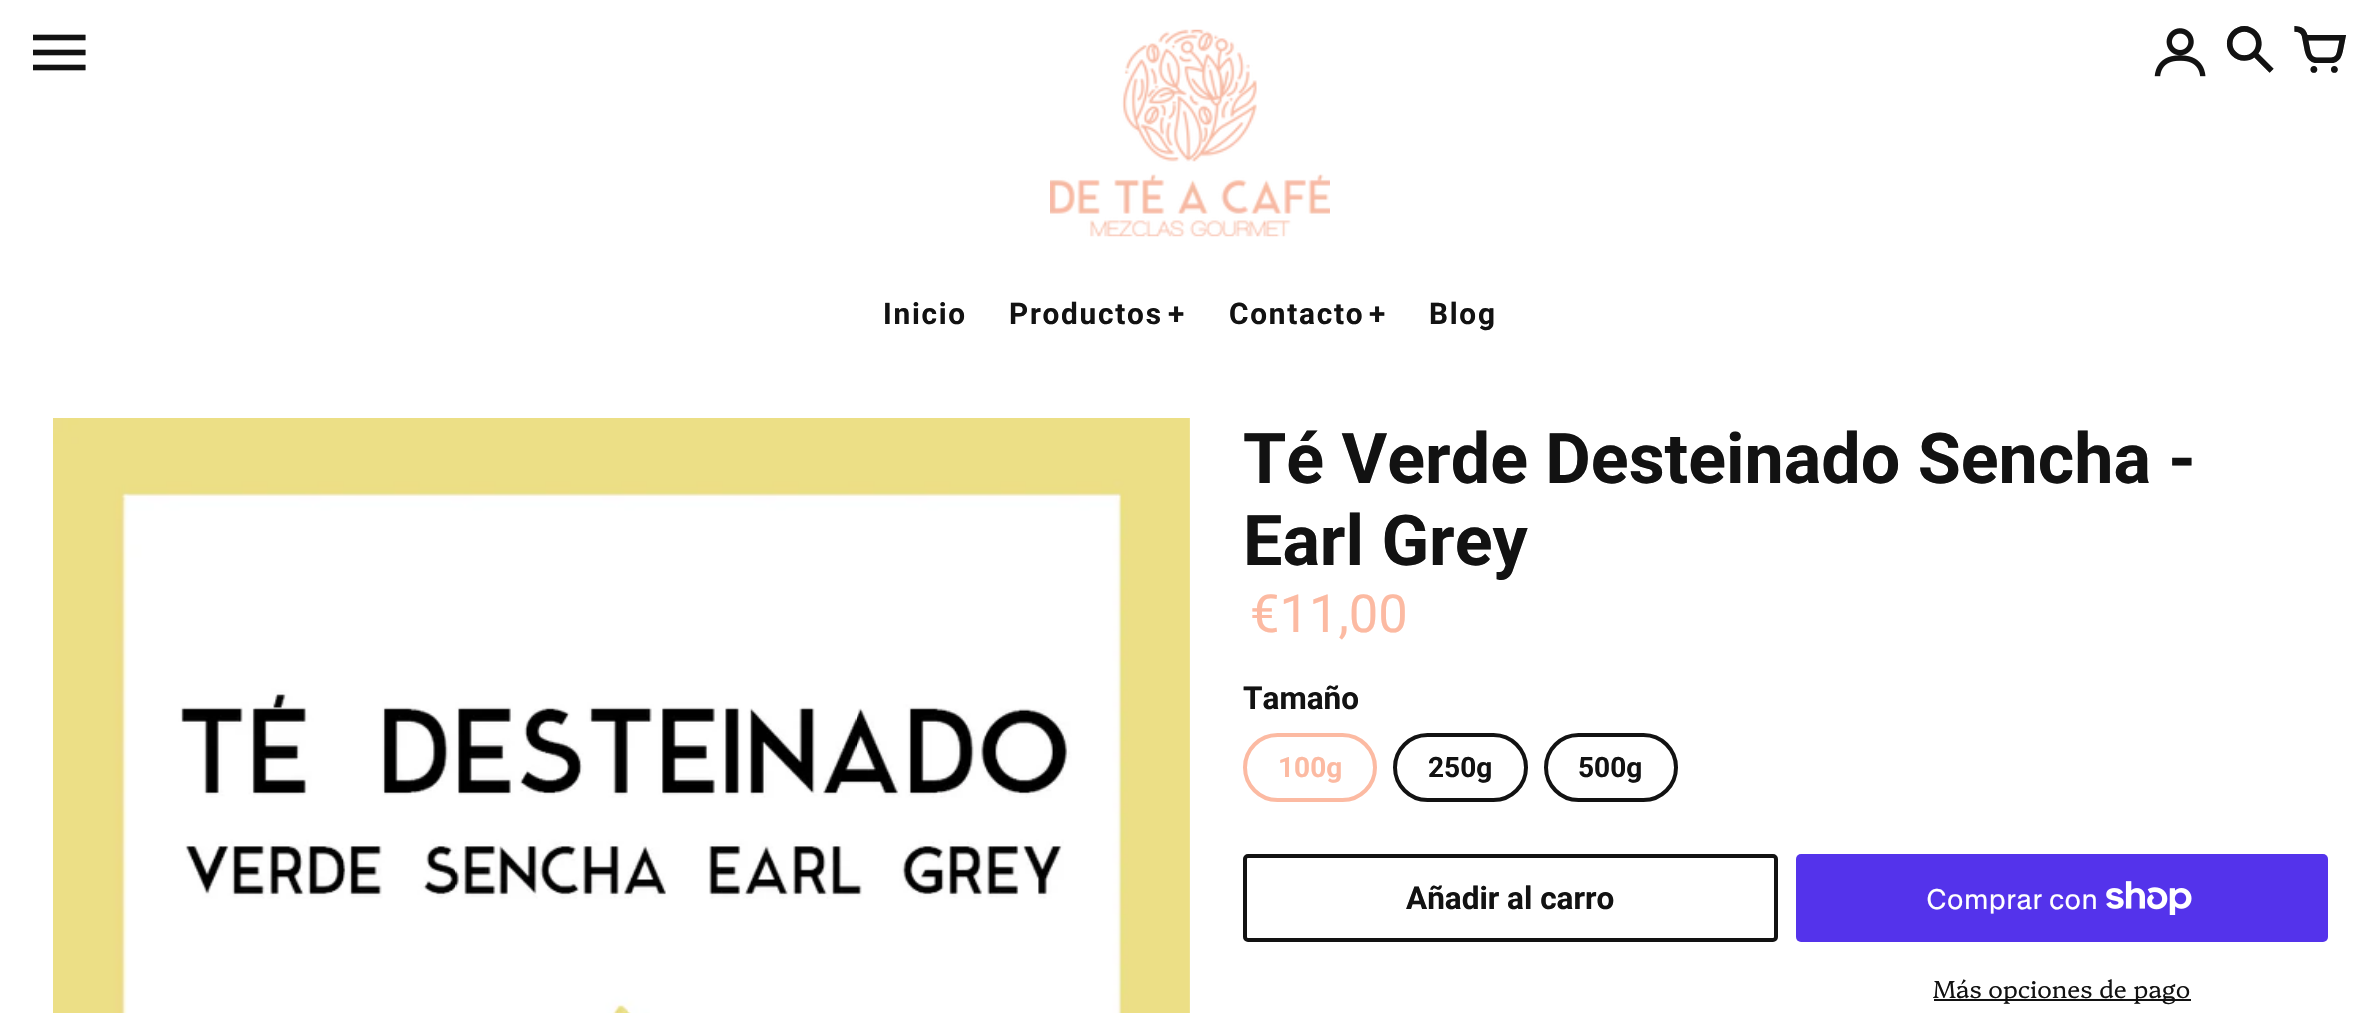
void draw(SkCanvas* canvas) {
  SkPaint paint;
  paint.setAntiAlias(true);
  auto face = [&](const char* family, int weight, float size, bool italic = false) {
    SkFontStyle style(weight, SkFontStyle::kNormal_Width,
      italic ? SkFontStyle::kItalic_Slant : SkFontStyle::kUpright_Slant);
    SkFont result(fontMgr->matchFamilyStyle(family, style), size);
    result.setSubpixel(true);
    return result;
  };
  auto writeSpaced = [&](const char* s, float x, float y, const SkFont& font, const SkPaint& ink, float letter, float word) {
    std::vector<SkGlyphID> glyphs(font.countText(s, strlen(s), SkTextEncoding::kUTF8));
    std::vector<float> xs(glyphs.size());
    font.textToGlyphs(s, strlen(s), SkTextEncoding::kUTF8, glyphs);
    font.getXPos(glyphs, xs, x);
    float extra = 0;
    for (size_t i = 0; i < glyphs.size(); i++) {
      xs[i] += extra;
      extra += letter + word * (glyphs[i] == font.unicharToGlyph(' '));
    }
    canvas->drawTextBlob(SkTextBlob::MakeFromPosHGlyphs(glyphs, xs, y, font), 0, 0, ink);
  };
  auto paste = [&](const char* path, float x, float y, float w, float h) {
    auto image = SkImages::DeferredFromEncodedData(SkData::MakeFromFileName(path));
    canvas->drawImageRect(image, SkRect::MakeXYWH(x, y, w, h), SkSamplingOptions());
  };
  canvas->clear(0xffffffff);
  paste("img/1.png", 1050, 29, 280, 208);
  paste("img/2.png", 2154, 28, 52, 49);
  paste("img/3.png", 53, 418, 1137, 595);
  paint.setStroke(true);
  paint.setStrokeWidth(4);
  paint.setColor(0xfffcbaa2);
  canvas->drawRoundRect(SkRect::MakeXYWH(1245, 735, 130, 65), 32.5f, 32.5f, paint);
  paint.setColor(0xff121212);
  canvas->drawRoundRect(SkRect::MakeXYWH(1395, 735, 131, 65), 32.5f, 32.5f, paint);
  canvas->drawRoundRect(SkRect::MakeXYWH(1546, 735, 130, 65), 32.5f, 32.5f, paint);
  canvas->drawRoundRect(SkRect::MakeXYWH(1245, 856, 531, 84), 3, 3, paint);
  paint.setStroke(false);
  paint.setColor(0xff5433eb);
  canvas->drawRoundRect(SkRect::MakeXYWH(1796, 854, 532, 88), 5, 5, paint);
  paste("img/4.png", 2106, 881, 86, 34);
  paint.setColor(0xff121212);
  canvas->drawRect(SkRect::MakeXYWH(1934, 999, 257, 2), paint);
  auto f0 = face("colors", 400, 52.5f);
  {
    const struct { const char* s; float x, y; } items[] = {
      {"1", 33, 82},
      {"2", 2224, 79},
      {"3", 2294, 79},
    };
    for (auto [s, x, y] : items) {
      canvas->drawString(s, x, y, f0, paint);
    }
  }
  auto f1 = face("Roboto", 700, 29.75f);
  {
    const struct { const char* s; float x, y; } items[] = {
      {"Inicio", 883, 324},
      {"Productos", 1009, 324},
      {"+", 1168, 324},
      {"Contacto", 1229, 324},
      {"+", 1369, 324},
      {"Blog", 1429, 324},
    };
    for (auto [s, x, y] : items) {
      writeSpaced(s, x, y, f1, paint, 1.75f, 0);
    }
  }
  auto f2 = face("Roboto", 700, 70);
  canvas->drawString("Té Verde Desteinado Sencha -", 1243, 483, f2, paint);
  canvas->drawString("Earl Grey", 1243, 565, f2, paint);
  auto f3 = face("Roboto", 400, 52.5f);
  paint.setColor(0xfffcbaa2);
  canvas->drawString("€11,00", 1250, 632, f3, paint);
  auto f4 = face("Roboto", 700, 31.5f);
  paint.setColor(0xff121212);
  canvas->drawString("Tamaño", 1243, 709, f4, paint);
  auto f5 = face("Roboto", 700, 28);
  paint.setColor(0xfffcbaa2);
  canvas->drawString("100g", 1278, 777, f5, paint);
  paint.setColor(0xff121212);
  canvas->drawString("250g", 1428, 777, f5, paint);
  canvas->drawString("500g", 1578, 777, f5, paint);
  canvas->drawString("Añadir al carro", 1406, 909, f4, paint);
  auto f6 = face("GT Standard", 400, 28);
  paint.setColor(0xffffffff);
  canvas->drawString("Comprar con", 1926, 909, f6, paint);
  auto f7 = face("Platypi", 300, 24.5f);
  paint.setColor(0xff121212);
  canvas->drawString("Más opciones de pago", 1933, 998, f7, paint);
}
